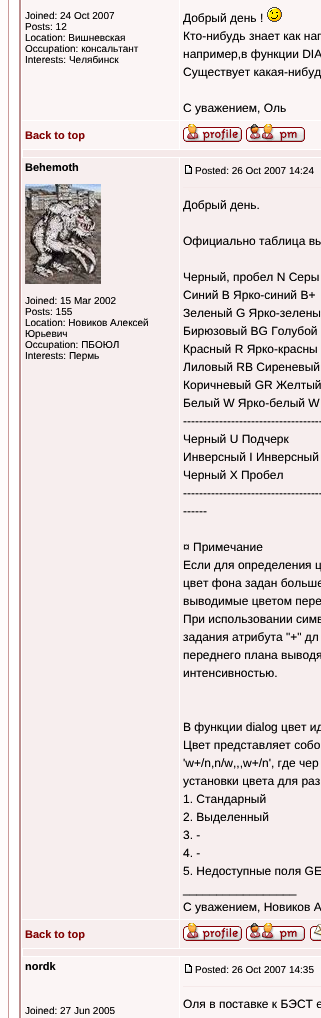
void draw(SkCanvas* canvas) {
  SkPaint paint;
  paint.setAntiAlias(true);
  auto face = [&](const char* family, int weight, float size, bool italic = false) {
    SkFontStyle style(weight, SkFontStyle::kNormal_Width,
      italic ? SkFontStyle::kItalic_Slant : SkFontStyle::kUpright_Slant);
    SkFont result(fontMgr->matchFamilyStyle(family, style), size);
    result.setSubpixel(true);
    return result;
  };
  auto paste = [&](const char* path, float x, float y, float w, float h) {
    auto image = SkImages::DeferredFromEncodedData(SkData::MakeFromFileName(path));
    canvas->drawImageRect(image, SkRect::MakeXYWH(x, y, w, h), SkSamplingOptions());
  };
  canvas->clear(0xfffffcfc);
  paint.setColor(0xffffffff);
  canvas->drawRect(SkRect::MakeXYWH(8.5f, -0.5f, 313, 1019), paint);
  paint.setStroke(true);
  paint.setStrokeWidth(1);
  paint.setColor(0xffcc9999);
  canvas->drawRect(SkRect::MakeXYWH(8.5f, -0.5f, 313, 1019), paint);
  paint.setStrokeWidth(2);
  paint.setColor(0xffbc8f8f);
  canvas->drawRect(SkRect::MakeXYWH(20, -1, 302, 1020), paint);
  paint.setStroke(false);
  paint.setColor(0xfffbf5f5);
  canvas->drawRect(SkRect::MakeXYWH(22, 0, 157, 120), paint);
  canvas->drawRect(SkRect::MakeXYWH(180, 0, 141, 120), paint);
  paste("img/1.png", 267, 7, 15, 15);
  canvas->drawRect(SkRect::MakeXYWH(22, 121, 157, 28), paint);
  canvas->drawRect(SkRect::MakeXYWH(180, 121, 141, 28), paint);
  paste("img/2.png", 183, 124, 59, 18);
  paste("img/3.png", 246, 124, 59, 18);
  paint.setColor(0xfff5e9e9);
  canvas->drawRect(SkRect::MakeXYWH(23, 150, 298, 7), paint);
  paint.setColor(0xfff7eeee);
  canvas->drawRect(SkRect::MakeXYWH(22, 158, 157, 761), paint);
  paste("img/4.png", 25, 184, 76, 100);
  canvas->drawRect(SkRect::MakeXYWH(180, 158, 141, 761), paint);
  paste("img/5.png", 185, 165, 7, 9);
  {
    const struct { float x, y, w, h; SkColor color; } items[] = {
      {183, 187, 138, 1, 0xfff5e9e9},
      {22, 920, 157, 28, 0xfff7eeee},
      {180, 920, 141, 28, 0xfff7eeee},
    };
    for (auto [x, y, w, h, color] : items) {
      paint.setColor(color);
      canvas->drawRect(SkRect::MakeXYWH(x, y, w, h), paint);
    }
  }
  paste("img/6.png", 183, 923, 59, 18);
  paste("img/7.png", 246, 923, 59, 18);
  paste("img/8.png", 310, 924, 11, 17);
  {
    const struct { float x, y, w, h; SkColor color; } items[] = {
      {23, 949, 298, 7, 0xfff5e9e9},
      {22, 957, 157, 61, 0xfffbf5f5},
      {180, 957, 141, 61, 0xfffbf5f5},
    };
    for (auto [x, y, w, h, color] : items) {
      paint.setColor(color);
      canvas->drawRect(SkRect::MakeXYWH(x, y, w, h), paint);
    }
  }
  paste("img/9.png", 185, 964, 7, 9);
  paint.setColor(0xfff5e9e9);
  canvas->drawRect(SkRect::MakeXYWH(183, 986, 138, 1), paint);
  auto f0 = face("Liberation Sans", 400, 10);
  paint.setColor(0xff000000);
  {
    const struct { const char* s; float x, y; } items[] = {
      {"Joined: 24 Oct 2007", 25, 19},
      {"Posts: 12", 25, 30},
      {"Location: Вишневская", 25, 41},
      {"Occupation: консальтант", 25, 52},
      {"Interests: Челябинск", 25, 63},
    };
    for (auto [s, x, y] : items) {
      canvas->drawString(s, x, y, f0, paint);
    }
  }
  auto f1 = face("Liberation Sans", 400, 12);
  {
    const struct { const char* s; float x, y; } items[] = {
      {"Добрый день !", 183, 22},
      {"Кто-нибудь знает как нап", 183, 40},
      {"например,в функции DIA", 183, 58},
      {"Существует какая-нибуд", 183, 76},
      {"С уважением, Оль", 183, 112},
    };
    for (auto [s, x, y] : items) {
      canvas->drawString(s, x, y, f1, paint);
    }
  }
  auto f2 = face("Liberation Sans", 700, 11);
  paint.setColor(0xff800000);
  canvas->drawString("Back to top", 25, 139, f2, paint);
  paint.setColor(0xff000000);
  canvas->drawString("Behemoth", 25, 171, f2, paint);
  {
    const struct { const char* s; float x, y; } items[] = {
      {"Joined: 15 Mar 2002", 25, 304},
      {"Posts: 155", 25, 315},
      {"Location: Новиков Алексей", 25, 326},
      {"Юрьевич", 25, 337},
      {"Occupation: ПБОЮЛ", 25, 348},
      {"Interests: Пермь", 25, 359},
      {"Posted: 26 Oct 2007 14:24", 195, 174},
    };
    for (auto [s, x, y] : items) {
      canvas->drawString(s, x, y, f0, paint);
    }
  }
  {
    const struct { const char* s; float x, y; } items[] = {
      {"Добрый день.", 183, 209},
      {"Официально таблица вы", 183, 245},
      {"Черный, пробел N Серы", 183, 281},
      {"Синий B Ярко-синий B+", 183, 299},
      {"Зеленый G Ярко-зелены", 183, 317},
      {"Бирюзовый BG Голубой", 183, 335},
      {"Красный R Ярко-красны", 183, 353},
      {"Лиловый RB Сиреневый", 183, 371},
      {"Коричневый GR Желтый", 183, 389},
      {"Белый W Ярко-белый W", 183, 407},
      {"-----------------------------------", 183, 425},
      {"Черный U Подчерк", 183, 443},
      {"Инверсный I Инверсный", 183, 461},
      {"Черный X Пробел", 183, 479},
      {"-----------------------------------", 183, 497},
      {"------", 183, 515},
      {"¤ Примечание", 183, 551},
      {"Если для определения ц", 183, 569},
      {"цвет фона задан больше", 183, 587},
      {"выводимые цветом пере", 183, 605},
      {"При использовании симв", 183, 623},
      {"задания атрибута \"+\" дл", 183, 641},
      {"переднего плана выводя", 183, 659},
      {"интенсивностью.", 183, 677},
      {"В функции dialog цвет ид", 183, 731},
      {"Цвет представляет собо", 183, 749},
      {"'w+/n,n/w,,,w+/n', где чер", 183, 767},
      {"установки цвета для раз", 183, 785},
      {"1. Стандарный", 183, 803},
      {"2. Выделенный", 183, 821},
      {"3. -", 183, 839},
      {"4. -", 183, 857},
      {"5. Недоступные поля GE", 183, 875},
      {"_________________", 183, 893},
      {"С уважением, Новиков А", 183, 911},
    };
    for (auto [s, x, y] : items) {
      canvas->drawString(s, x, y, f1, paint);
    }
  }
  paint.setColor(0xff800000);
  canvas->drawString("Back to top", 25, 938, f2, paint);
  paint.setColor(0xff000000);
  canvas->drawString("nordk", 25, 970, f2, paint);
  canvas->drawString("Joined: 27 Jun 2005", 25, 1014, f0, paint);
  canvas->drawString("Posted: 26 Oct 2007 14:35", 195, 973, f0, paint);
  canvas->drawString("Оля в поставке к БЭСТ е", 183, 1008, f1, paint);
}
